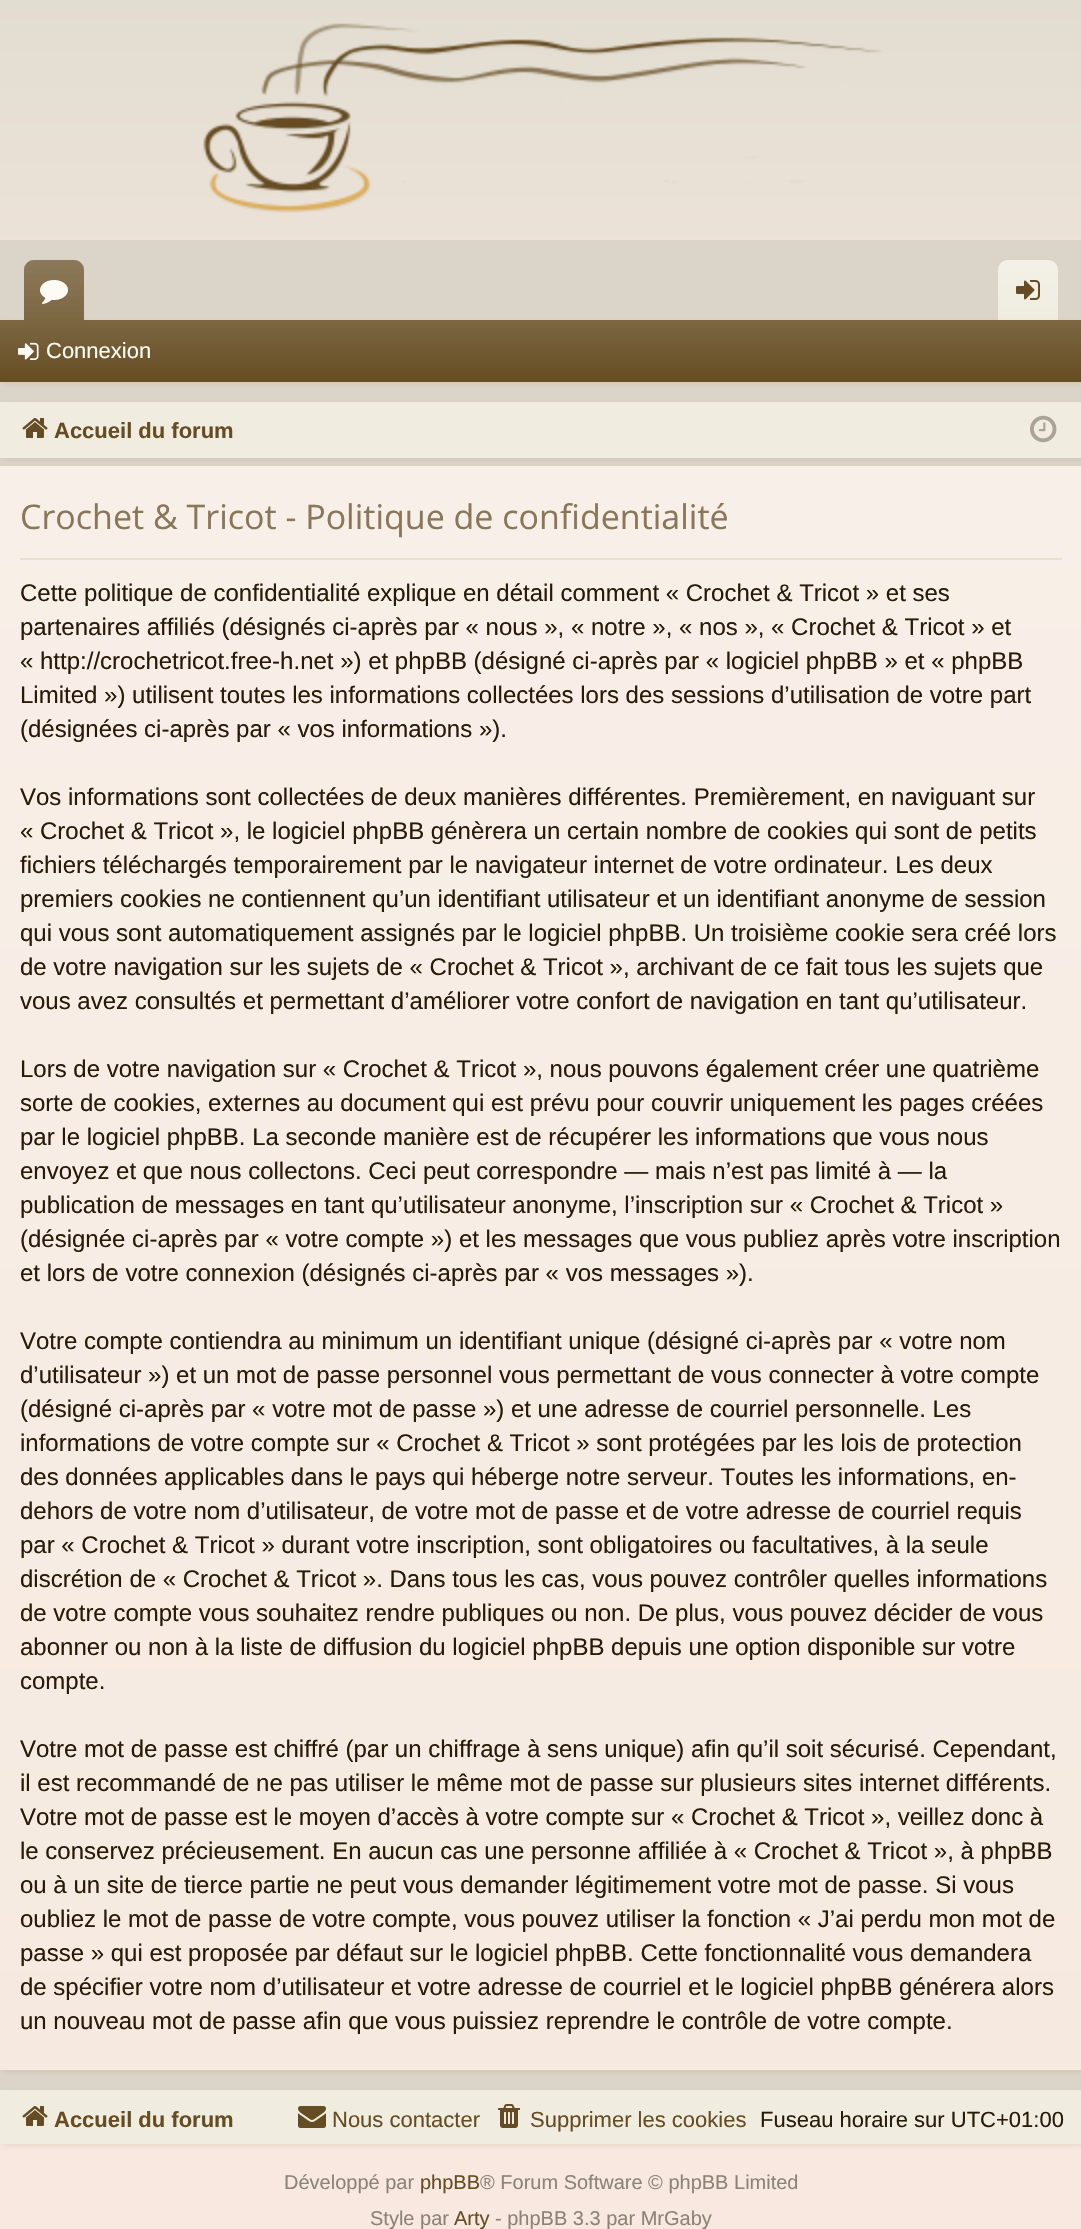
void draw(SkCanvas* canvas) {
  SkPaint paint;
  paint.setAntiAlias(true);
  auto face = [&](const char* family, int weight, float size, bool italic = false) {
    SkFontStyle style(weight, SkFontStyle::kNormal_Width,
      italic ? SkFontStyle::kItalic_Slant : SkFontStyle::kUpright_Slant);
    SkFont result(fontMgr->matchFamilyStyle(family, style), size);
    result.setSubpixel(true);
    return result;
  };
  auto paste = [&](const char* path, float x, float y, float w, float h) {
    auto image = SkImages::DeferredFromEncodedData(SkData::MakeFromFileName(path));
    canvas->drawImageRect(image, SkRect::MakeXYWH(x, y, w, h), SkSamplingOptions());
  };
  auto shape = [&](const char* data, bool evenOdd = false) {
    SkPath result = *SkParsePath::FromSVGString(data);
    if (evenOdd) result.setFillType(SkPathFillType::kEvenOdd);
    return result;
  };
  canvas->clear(0xffffffff);
  {
    const SkColor colors[] = {0xffe2ddd1, 0xfff2e5dc, 0xfff9e8e0};
    const float stops[] = {0, 0.17f, 1};
    const SkPoint ends[] = {{541, 0}, {541, 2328}};
    paint.setShader(SkGradientShader::MakeLinear(ends, colors, stops, 3, SkTileMode::kClamp));
    paint.setAlpha(255);
  }
  canvas->drawRect(SkRect::MakeXYWH(0, 0, 1081, 2229), paint);
  paste("img/1.png", 203, 23, 679, 190);
  paint.setShader(nullptr);
  paint.setColor(0xffdbd5c9);
  canvas->drawRect(SkRect::MakeXYWH(0, 240, 1081, 1850), paint);
  paint.setColor(0xff654c22);
  canvas->drawPath(shape("M34 260H74C79.5 260 84 264.5 84 270V320H24V270C24 264.5 28.5 260 34 260Z"), paint);
  {
    const SkColor colors[] = {0x40ffffff, 0x26ffffff};
    const float stops[] = {0, 1};
    const SkPoint ends[] = {{54, 260}, {54, 320}};
    paint.setShader(SkGradientShader::MakeLinear(ends, colors, stops, 2, SkTileMode::kClamp));
    paint.setAlpha(255);
  }
  canvas->drawPath(shape("M34 260H74C79.5 260 84 264.5 84 270V320H24V270C24 264.5 28.5 260 34 260Z"), paint);
  paste("img/2.png", 40, 280, 28, 24);
  paint.setShader(nullptr);
  paint.setColor(0xfff0ece0);
  canvas->drawPath(shape("M1008 260H1048C1053.5 260 1058 264.5 1058 270V320H998V270C998 264.5 1002.5 260 1008 260Z"), paint);
  {
    const SkColor colors[] = {0x40ffffff, 0x00ffffff};
    const float stops[] = {0, 1};
    const SkPoint ends[] = {{1028, 260}, {1028, 320}};
    paint.setShader(SkGradientShader::MakeLinear(ends, colors, stops, 2, SkTileMode::kClamp));
    paint.setAlpha(255);
  }
  canvas->drawPath(shape("M1008 260H1048C1053.5 260 1058 264.5 1058 270V320H998V270C998 264.5 1002.5 260 1008 260Z"), paint);
  paint.setShader(nullptr);
  paint.setColor(0x1a654c22);
  paint.setMaskFilter(SkMaskFilter::MakeBlur(kNormal_SkBlurStyle, 3));
  canvas->drawRect(SkRect::MakeXYWH(2, 322, 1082, 62), paint);
  paint.setMaskFilter(nullptr);
  {
    const SkColor colors[] = {0xff7c6743, 0xff654c22};
    const float stops[] = {0, 1};
    const SkPoint ends[] = {{541, 320}, {541, 382}};
    paint.setShader(SkGradientShader::MakeLinear(ends, colors, stops, 2, SkTileMode::kClamp));
    paint.setAlpha(255);
  }
  canvas->drawRect(SkRect::MakeXYWH(0, 320, 1081, 62), paint);
  paint.setShader(nullptr);
  paint.setColor(0xff654c22);
  canvas->drawPath(shape("M28 318H80C82 318 84 320 84 322H24C24 320 26 318 28 318Z"), paint);
  paint.setColor(0x26ffffff);
  canvas->drawPath(shape("M28 318H80C82 318 84 320 84 322H24C24 320 26 318 28 318Z"), paint);
  paste("img/3.png", 1016, 280, 24, 20);
  paste("img/4.png", 18, 342, 21, 18);
  paint.setColor(0x1a654c22);
  paint.setMaskFilter(SkMaskFilter::MakeBlur(kNormal_SkBlurStyle, 3));
  canvas->drawRect(SkRect::MakeXYWH(2, 404, 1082, 56), paint);
  paint.setMaskFilter(nullptr);
  paint.setColor(0xfff0ece0);
  canvas->drawRect(SkRect::MakeXYWH(0, 402, 1081, 56), paint);
  paste("img/5.png", 22, 418, 26, 20);
  paste("img/6.png", 1030, 415, 27, 28);
  paint.setColor(0x1a654c22);
  paint.setMaskFilter(SkMaskFilter::MakeBlur(kNormal_SkBlurStyle, 3));
  canvas->drawRect(SkRect::MakeXYWH(2, 468, 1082, 1604), paint);
  paint.setMaskFilter(nullptr);
  {
    const SkColor colors[] = {0xfff8efe8, 0xfff6eae0};
    const float stops[] = {0, 1};
    const SkPoint ends[] = {{541, 466}, {541, 2070}};
    paint.setShader(SkGradientShader::MakeLinear(ends, colors, stops, 2, SkTileMode::kClamp));
    paint.setAlpha(255);
  }
  canvas->drawRect(SkRect::MakeXYWH(0, 466, 1081, 1604), paint);
  paint.setShader(nullptr);
  paint.setColor(0xffe8e1cf);
  canvas->drawRect(SkRect::MakeXYWH(20, 558, 1042, 2), paint);
  paint.setColor(0x1a654c22);
  paint.setMaskFilter(SkMaskFilter::MakeBlur(kNormal_SkBlurStyle, 3));
  canvas->drawRect(SkRect::MakeXYWH(2, 2092, 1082, 54), paint);
  paint.setMaskFilter(nullptr);
  paint.setColor(0xfff0ece0);
  canvas->drawRect(SkRect::MakeXYWH(0, 2090, 1081, 54), paint);
  paste("img/5.png", 22, 2106, 26, 20);
  paste("img/7.png", 298, 2106, 28, 22);
  paste("img/8.png", 498, 2104, 22, 24);
  auto f0 = face("Liberation Sans", 400, 22);
  paint.setColor(0xfffefbf5);
  canvas->drawString("Connexion", 46, 358, f0, paint);
  auto f1 = face("Liberation Sans", 700, 22);
  paint.setColor(0xff654c22);
  canvas->drawString("Accueil du forum", 54, 438, f1, paint);
  auto f2 = face("Open Sans", 400, 34);
  paint.setColor(0xff897759);
  canvas->drawString("Crochet & Tricot - Politique de confidentialité", 20, 529, f2, paint);
  auto f3 = face("Liberation Sans", 400, 24);
  paint.setColor(0xff271b08);
  {
    const struct { const char* s; float x, y; } items[] = {
      {"Cette politique de confidentialité explique en détail comment « Crochet & Tricot » et ses", 20, 601},
      {"partenaires affiliés (désignés ci-après par « nous », « notre », « nos », « Crochet & Tricot » et", 20, 635},
      {"« http://crochetricot.free-h.net ») et phpBB (désigné ci-après par « logiciel phpBB » et « phpBB", 20, 669},
      {"Limited ») utilisent toutes les informations collectées lors des sessions d’utilisation de votre part", 20, 703},
      {"(désignées ci-après par « vos informations »).", 20, 737},
      {"Vos informations sont collectées de deux manières différentes. Premièrement, en naviguant sur", 20, 805},
      {"« Crochet & Tricot », le logiciel phpBB génèrera un certain nombre de cookies qui sont de petits", 20, 839},
      {"fichiers téléchargés temporairement par le navigateur internet de votre ordinateur. Les deux", 20, 873},
      {"premiers cookies ne contiennent qu’un identifiant utilisateur et un identifiant anonyme de session", 20, 907},
      {"qui vous sont automatiquement assignés par le logiciel phpBB. Un troisième cookie sera créé lors", 20, 941},
      {"de votre navigation sur les sujets de « Crochet & Tricot », archivant de ce fait tous les sujets que", 20, 975},
      {"vous avez consultés et permettant d’améliorer votre confort de navigation en tant qu’utilisateur.", 20, 1009},
      {"Lors de votre navigation sur « Crochet & Tricot », nous pouvons également créer une quatrième", 20, 1077},
      {"sorte de cookies, externes au document qui est prévu pour couvrir uniquement les pages créées", 20, 1111},
      {"par le logiciel phpBB. La seconde manière est de récupérer les informations que vous nous", 20, 1145},
      {"envoyez et que nous collectons. Ceci peut correspondre — mais n’est pas limité à — la", 20, 1179},
      {"publication de messages en tant qu’utilisateur anonyme, l’inscription sur « Crochet & Tricot »", 20, 1213},
      {"(désignée ci-après par « votre compte ») et les messages que vous publiez après votre inscription", 20, 1247},
      {"et lors de votre connexion (désignés ci-après par « vos messages »).", 20, 1281},
      {"Votre compte contiendra au minimum un identifiant unique (désigné ci-après par « votre nom", 20, 1349},
      {"d’utilisateur ») et un mot de passe personnel vous permettant de vous connecter à votre compte", 20, 1383},
      {"(désigné ci-après par « votre mot de passe ») et une adresse de courriel personnelle. Les", 20, 1417},
      {"informations de votre compte sur « Crochet & Tricot » sont protégées par les lois de protection", 20, 1451},
      {"des données applicables dans le pays qui héberge notre serveur. Toutes les informations, en-", 20, 1485},
      {"dehors de votre nom d’utilisateur, de votre mot de passe et de votre adresse de courriel requis", 20, 1519},
      {"par « Crochet & Tricot » durant votre inscription, sont obligatoires ou facultatives, à la seule", 20, 1553},
      {"discrétion de « Crochet & Tricot ». Dans tous les cas, vous pouvez contrôler quelles informations", 20, 1587},
      {"de votre compte vous souhaitez rendre publiques ou non. De plus, vous pouvez décider de vous", 20, 1621},
      {"abonner ou non à la liste de diffusion du logiciel phpBB depuis une option disponible sur votre", 20, 1655},
      {"compte.", 20, 1689},
      {"Votre mot de passe est chiffré (par un chiffrage à sens unique) afin qu’il soit sécurisé. Cependant,", 20, 1757},
      {"il est recommandé de ne pas utiliser le même mot de passe sur plusieurs sites internet différents.", 20, 1791},
      {"Votre mot de passe est le moyen d’accès à votre compte sur « Crochet & Tricot », veillez donc à", 20, 1825},
      {"le conservez précieusement. En aucun cas une personne affiliée à « Crochet & Tricot », à phpBB", 20, 1859},
      {"ou à un site de tierce partie ne peut vous demander légitimement votre mot de passe. Si vous", 20, 1893},
      {"oubliez le mot de passe de votre compte, vous pouvez utiliser la fonction « J’ai perdu mon mot de", 20, 1927},
      {"passe » qui est proposée par défaut sur le logiciel phpBB. Cette fonctionnalité vous demandera", 20, 1961},
      {"de spécifier votre nom d’utilisateur et votre adresse de courriel et le logiciel phpBB générera alors", 20, 1995},
      {"un nouveau mot de passe afin que vous puissiez reprendre le contrôle de votre compte.", 20, 2029},
    };
    for (auto [s, x, y] : items) {
      canvas->drawString(s, x, y, f3, paint);
    }
  }
  paint.setColor(0xff654c22);
  canvas->drawString("Accueil du forum", 54, 2127, f1, paint);
  canvas->drawString("Nous contacter", 332, 2127, f0, paint);
  canvas->drawString("Supprimer les cookies", 530, 2127, f0, paint);
  paint.setColor(0xff271b08);
  canvas->drawString("Fuseau horaire sur UTC+01:00", 760, 2127, f0, paint);
  auto f4 = face("Liberation Sans", 400, 20);
  paint.setColor(0xff8b8374);
  canvas->drawString("Développé par", 284, 2189, f4, paint);
  paint.setColor(0xff654c22);
  canvas->drawString("phpBB", 420, 2189, f4, paint);
  paint.setColor(0xff8b8374);
  canvas->drawString("® Forum Software © phpBB Limited", 480, 2189, f4, paint);
  canvas->drawString("Style par", 370, 2225, f4, paint);
  paint.setColor(0xff654c22);
  canvas->drawString("Arty", 454, 2225, f4, paint);
  paint.setColor(0xff8b8374);
  canvas->drawString("- phpBB 3.3 par MrGaby", 495, 2225, f4, paint);
}
